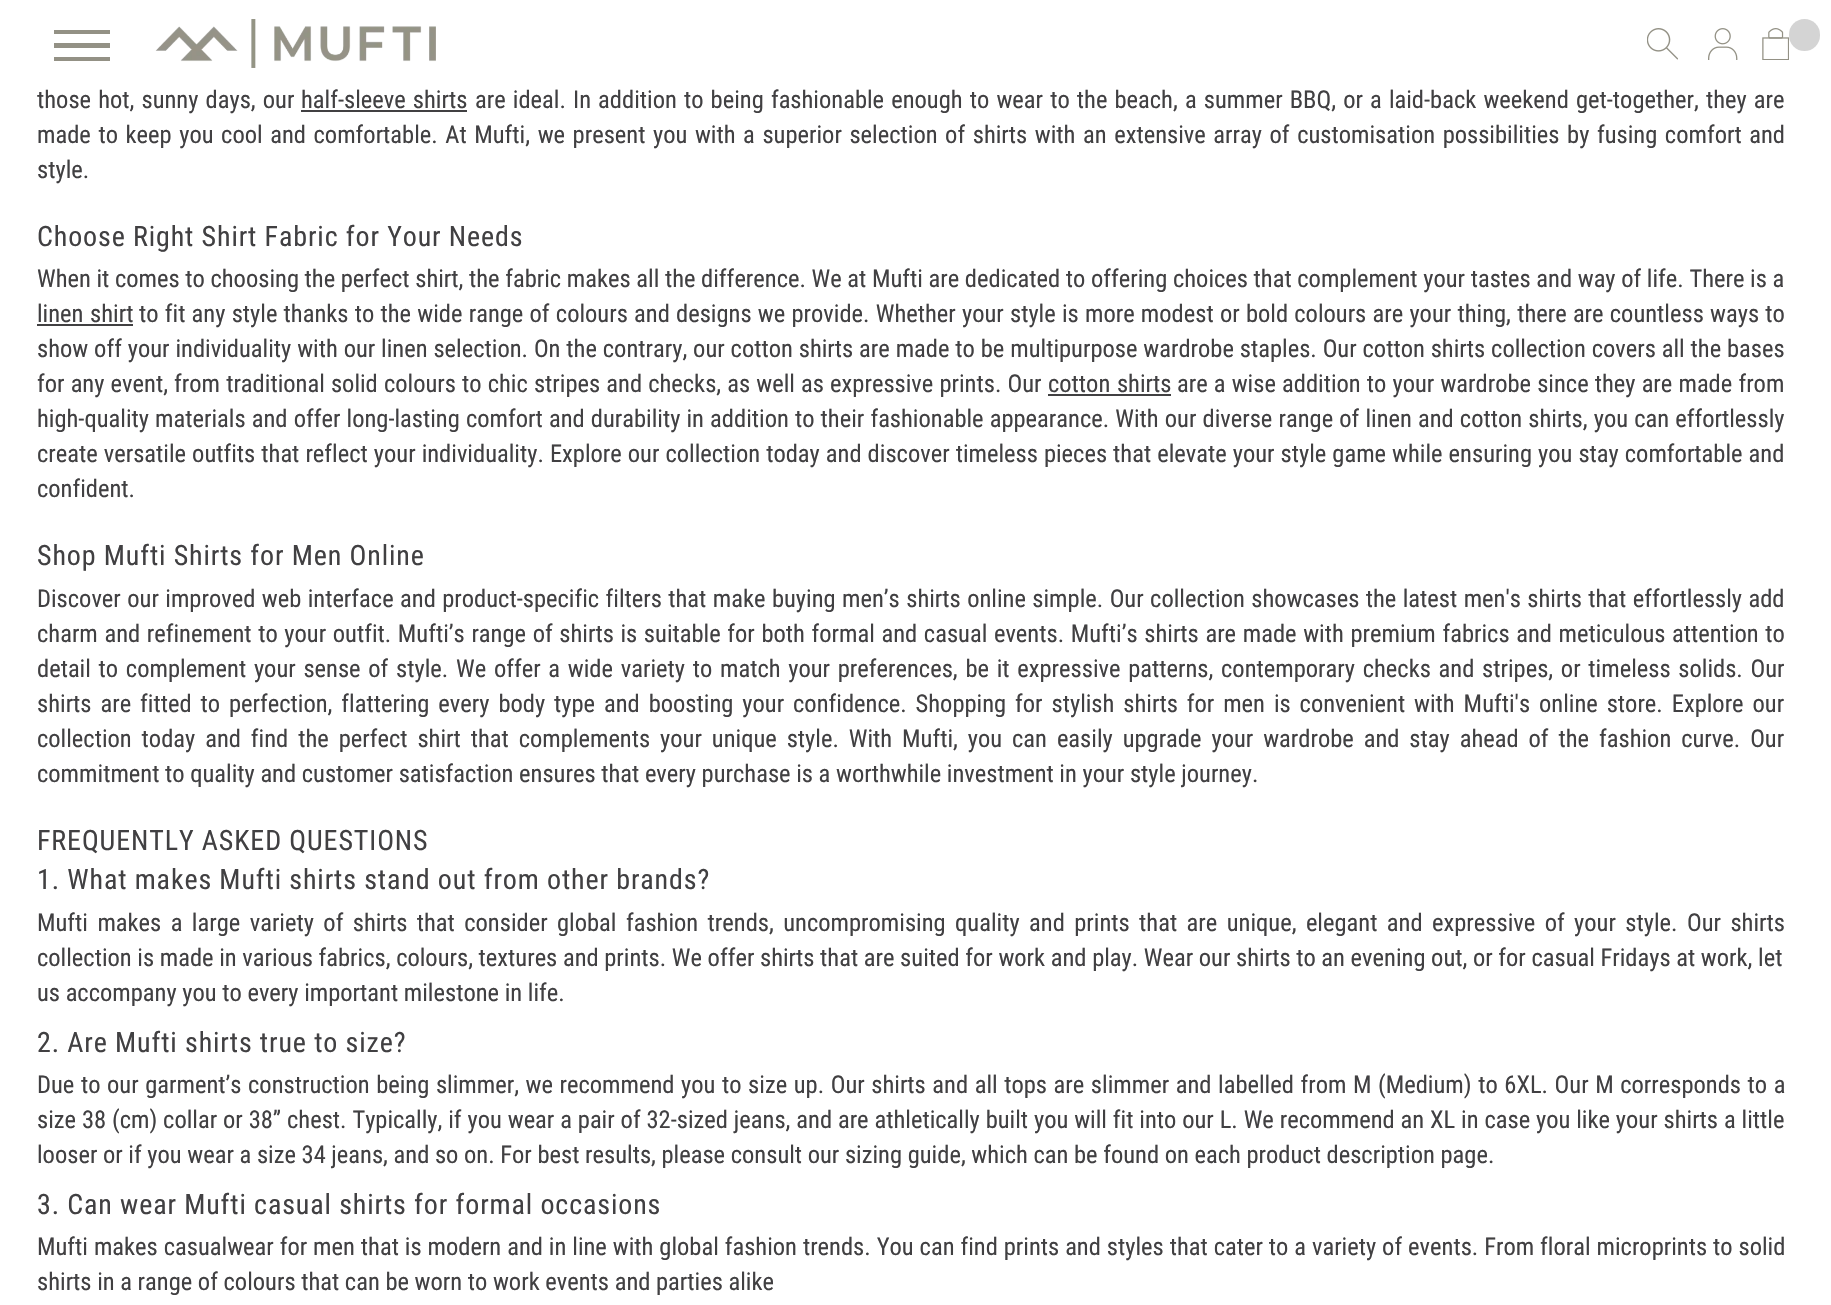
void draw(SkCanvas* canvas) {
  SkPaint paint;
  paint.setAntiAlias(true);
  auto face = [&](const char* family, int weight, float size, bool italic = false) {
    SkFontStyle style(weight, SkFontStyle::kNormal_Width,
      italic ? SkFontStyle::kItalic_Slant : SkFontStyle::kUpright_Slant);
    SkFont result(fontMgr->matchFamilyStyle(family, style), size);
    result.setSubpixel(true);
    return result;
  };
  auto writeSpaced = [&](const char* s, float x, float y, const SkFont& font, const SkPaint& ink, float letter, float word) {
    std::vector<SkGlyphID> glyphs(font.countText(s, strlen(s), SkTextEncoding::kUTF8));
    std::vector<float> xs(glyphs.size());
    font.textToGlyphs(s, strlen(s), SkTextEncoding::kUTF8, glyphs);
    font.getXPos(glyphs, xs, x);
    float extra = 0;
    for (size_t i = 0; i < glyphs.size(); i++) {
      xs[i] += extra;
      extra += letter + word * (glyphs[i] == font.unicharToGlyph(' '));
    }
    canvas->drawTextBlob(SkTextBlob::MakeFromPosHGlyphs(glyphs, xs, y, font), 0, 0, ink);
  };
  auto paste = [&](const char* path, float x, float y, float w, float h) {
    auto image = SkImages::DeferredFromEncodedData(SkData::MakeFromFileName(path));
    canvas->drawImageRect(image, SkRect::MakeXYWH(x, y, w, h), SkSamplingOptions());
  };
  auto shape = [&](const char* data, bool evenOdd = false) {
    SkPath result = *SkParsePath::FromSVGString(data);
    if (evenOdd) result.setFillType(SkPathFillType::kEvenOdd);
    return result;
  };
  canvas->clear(0xffffffff);
  paint.setColor(0xff939185);
  canvas->drawPath(shape("M54 30H110V34H54ZM54 43H110V48H54ZM54 57H110V61H54Z"), paint);
  paste("img/1.png", 155, 19, 281, 49);
  paste("img/2.png", 1647, 28, 31, 32);
  paste("img/3.png", 1708, 28, 30, 32);
  paste("img/4.png", 1762, 28, 27, 32);
  paint.setColor(0xffd4d4d4);
  canvas->drawRoundRect(SkRect::MakeXYWH(1789, 19, 31, 32), 15.5f, 15.5f, paint);
  {
    const struct { float x, y, w, h; SkColor color; } items[] = {
      {301, 110, 166, 2, 0xff414042},
      {37, 324, 96, 2, 0xff414042},
      {1048, 394, 123, 2, 0xff414042},
    };
    for (auto [x, y, w, h, color] : items) {
      paint.setColor(color);
      canvas->drawRect(SkRect::MakeXYWH(x, y, w, h), paint);
    }
  }
  auto f0 = face("Roboto Condensed", 400, 24.5f);
  {
    const struct { const char* s; float x, y; } items[] = {
      {"those hot, sunny days, our", 37, 108},
      {"half-sleeve shirts", 301, 108},
      {"are ideal. In addition to being fashionable enough to wear to the beach, a summer BBQ, or a laid-back weekend get-together, they are", 475, 108},
    };
    for (auto [s, x, y] : items) {
      writeSpaced(s, x, y, f0, paint, 0, 1.5f);
    }
  }
  writeSpaced("made to keep you cool and comfortable. At Mufti, we present you with a superior selection of shirts with an extensive array of customisation possibilities by fusing comfort and", 37, 143, f0, paint, 0, 1.95f);
  canvas->drawString("style.", 37, 178, f0, paint);
  auto f1 = face("Roboto Condensed", 400, 28);
  writeSpaced("Choose Right Shirt Fabric for Your Needs", 37, 246, f1, paint, 0.88f, 0);
  canvas->drawString("When it comes to choosing the perfect shirt, the fabric makes all the difference. We at Mufti are dedicated to offering choices that complement your tastes and way of life. There is a", 37, 287, f0, paint);
  writeSpaced("linen shirt", 37, 322, f0, paint, 0, 1);
  writeSpaced("to fit any style thanks to the wide range of colours and designs we provide. Whether your style is more modest or bold colours are your thing, there are countless ways to", 139, 322, f0, paint, 0, 0.6f);
  writeSpaced("show off your individuality with our linen selection. On the contrary, our cotton shirts are made to be multipurpose wardrobe staples. Our cotton shirts collection covers all the bases", 37, 357, f0, paint, 0, 0.25f);
  writeSpaced("for any event, from traditional solid colours to chic stripes and checks, as well as expressive prints. Our", 37, 392, f0, paint, 0, 0.5f);
  writeSpaced("cotton shirts", 1048, 392, f0, paint, 0, 1);
  writeSpaced("are a wise addition to your wardrobe since they are made from", 1177, 392, f0, paint, 0, 0.5f);
  writeSpaced("high-quality materials and offer long-lasting comfort and durability in addition to their fashionable appearance. With our diverse range of linen and cotton shirts, you can effortlessly", 37, 427, f0, paint, 0, 0.5f);
  writeSpaced("create versatile outfits that reflect your individuality. Explore our collection today and discover timeless pieces that elevate your style game while ensuring you stay comfortable and", 37, 462, f0, paint, 0, 0.4f);
  canvas->drawString("confident.", 37, 497, f0, paint);
  writeSpaced("Shop Mufti Shirts for Men Online", 37, 565, f1, paint, 0.88f, 0);
  writeSpaced("Discover our improved web interface and product-specific filters that make buying men’s shirts online simple. Our collection showcases the latest men's shirts that effortlessly add", 37, 607, f0, paint, 0, 0.8f);
  writeSpaced("charm and refinement to your outfit. Mufti’s range of shirts is suitable for both formal and casual events. Mufti’s shirts are made with premium fabrics and meticulous attention to", 37, 642, f0, paint, 0, 1);
  writeSpaced("detail to complement your sense of style. We offer a wide variety to match your preferences, be it expressive patterns, contemporary checks and stripes, or timeless solids. Our", 37, 677, f0, paint, 0, 2.1f);
  writeSpaced("shirts are fitted to perfection, flattering every body type and boosting your confidence. Shopping for stylish shirts for men is convenient with Mufti's online store. Explore our", 37, 712, f0, paint, 0, 3.3f);
  writeSpaced("collection today and find the perfect shirt that complements your unique style. With Mufti, you can easily upgrade your wardrobe and stay ahead of the fashion curve. Our", 37, 747, f0, paint, 0, 4.3f);
  canvas->drawString("commitment to quality and customer satisfaction ensures that every purchase is a worthwhile investment in your style journey.", 37, 782, f0, paint);
  writeSpaced("FREQUENTLY ASKED QUESTIONS", 37, 850, f1, paint, 0.88f, 0);
  writeSpaced("1. What makes Mufti shirts stand out from other brands?", 37, 889, f1, paint, 0.88f, 0);
  writeSpaced("Mufti makes a large variety of shirts that consider global fashion trends, uncompromising quality and prints that are unique, elegant and expressive of your style. Our shirts", 37, 931, f0, paint, 0, 3.8f);
  canvas->drawString("collection is made in various fabrics, colours, textures and prints. We offer shirts that are suited for work and play. Wear our shirts to an evening out, or for casual Fridays at work, let", 37, 966, f0, paint);
  canvas->drawString("us accompany you to every important milestone in life.", 37, 1001, f0, paint);
  writeSpaced("2. Are Mufti shirts true to size?", 37, 1052, f1, paint, 0.88f, 0);
  writeSpaced("Due to our garment’s construction being slimmer, we recommend you to size up. Our shirts and all tops are slimmer and labelled from M (Medium) to 6XL. Our M corresponds to a", 37, 1093, f0, paint, 0, 0.95f);
  writeSpaced("size 38 (cm) collar or 38” chest. Typically, if you wear a pair of 32-sized jeans, and are athletically built you will fit into our L. We recommend an XL in case you like your shirts a little", 37, 1128, f0, paint, 0, 0.25f);
  canvas->drawString("looser or if you wear a size 34 jeans, and so on. For best results, please consult our sizing guide, which can be found on each product description page.", 37, 1163, f0, paint);
  writeSpaced("3. Can wear Mufti casual shirts for formal occasions", 37, 1214, f1, paint, 0.88f, 0);
  writeSpaced("Mufti makes casualwear for men that is modern and in line with global fashion trends. You can find prints and styles that cater to a variety of events. From floral microprints to solid", 37, 1255, f0, paint, 0, 0.3f);
  canvas->drawString("shirts in a range of colours that can be worn to work events and parties alike", 37, 1290, f0, paint);
}
